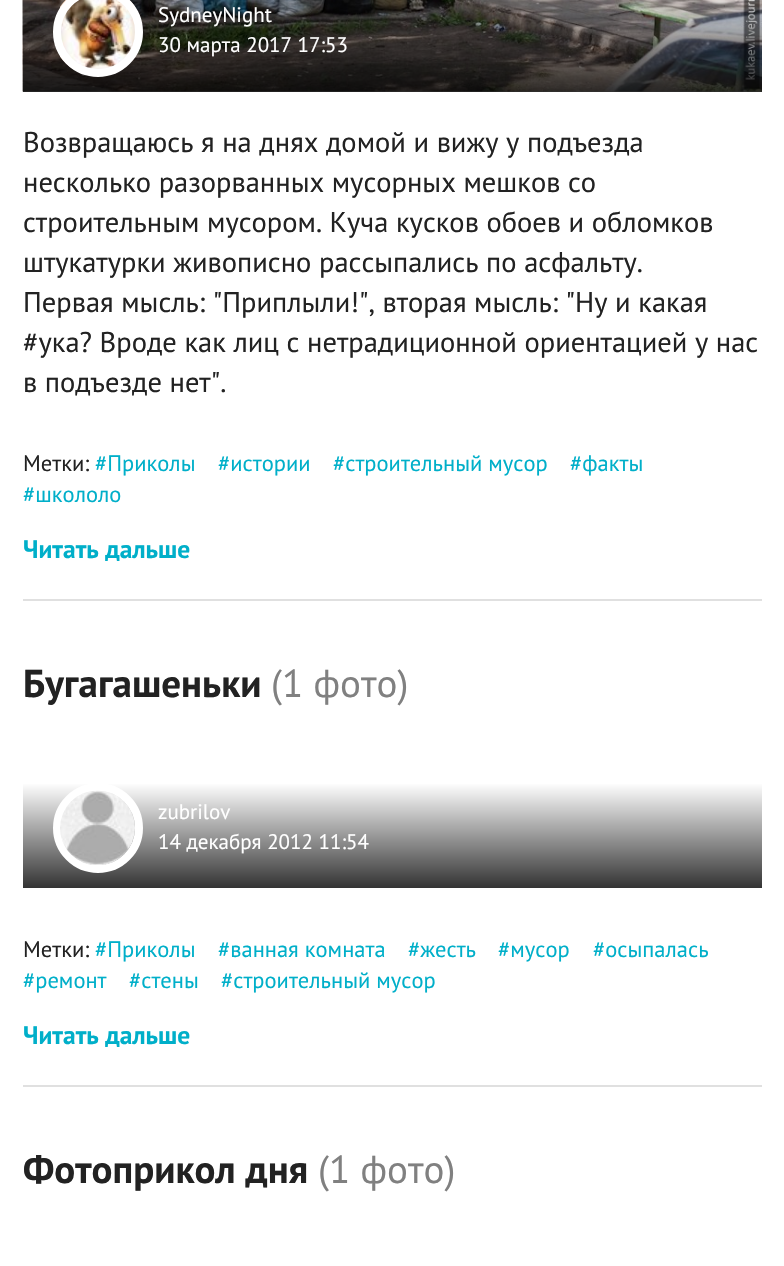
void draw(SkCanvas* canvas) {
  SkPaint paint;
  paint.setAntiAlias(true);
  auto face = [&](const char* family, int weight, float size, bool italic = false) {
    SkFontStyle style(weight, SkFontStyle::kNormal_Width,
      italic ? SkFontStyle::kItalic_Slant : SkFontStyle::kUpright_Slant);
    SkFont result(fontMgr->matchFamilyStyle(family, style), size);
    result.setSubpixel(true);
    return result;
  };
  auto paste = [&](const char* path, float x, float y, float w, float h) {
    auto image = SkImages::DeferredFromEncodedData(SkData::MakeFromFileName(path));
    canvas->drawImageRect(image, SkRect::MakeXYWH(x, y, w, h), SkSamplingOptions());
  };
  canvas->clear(0xffffffff);
  paint.setColor(0xffe0e0e0);
  canvas->drawRect(SkRect::MakeXYWH(23, 599, 739, 2), paint);
  paste("img/1.png", 22, 0, 740, 92);
  {
    const SkColor colors[] = {0xcc000000, 0x00000000};
    const float stops[] = {0, 1};
    const SkPoint ends[] = {{392, 92}, {392, -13}};
    paint.setShader(SkGradientShader::MakeLinear(ends, colors, stops, 2, SkTileMode::kClamp));
    paint.setAlpha(255);
  }
  canvas->drawRect(SkRect::MakeXYWH(23, 0, 739, 92), paint);
  paste("img/2.png", 60, 0, 75, 69);
  paint.setStroke(true);
  paint.setStrokeWidth(8);
  paint.setShader(nullptr);
  paint.setColor(0xffffffff);
  canvas->drawCircle(98, 32, 41, paint);
  paint.setStroke(false);
  paint.setColor(0xffe0e0e0);
  canvas->drawRect(SkRect::MakeXYWH(23, 1085, 739, 2), paint);
  {
    const SkColor colors[] = {0xff333333, 0xffffffff};
    const float stops[] = {0, 1};
    const SkPoint ends[] = {{392, 888}, {392, 783}};
    paint.setShader(SkGradientShader::MakeLinear(ends, colors, stops, 2, SkTileMode::kClamp));
    paint.setAlpha(255);
  }
  canvas->drawRect(SkRect::MakeXYWH(23, 784, 739, 104), paint);
  paint.setStroke(true);
  paint.setShader(nullptr);
  paint.setColor(0xffffffff);
  canvas->drawCircle(98, 828, 41, paint);
  paste("img/3.png", 60, 790, 75, 75);
  auto f0 = face("PT Sans", 400, 21);
  paint.setStroke(false);
  canvas->drawString("SydneyNight", 158, 22, f0, paint);
  canvas->drawString("30 марта 2017 17:53", 158, 52, f0, paint);
  auto f1 = face("PT Sans", 400, 28.5f);
  paint.setColor(0xff222222);
  {
    const struct { const char* s; float x, y; } items[] = {
      {"Возвращаюсь я на днях домой и вижу у подъезда", 23, 152},
      {"несколько разорванных мусорных мешков со", 23, 192},
      {"строительным мусором. Куча кусков обоев и обломков", 23, 232},
      {"штукатурки живописно рассыпались по асфальту.", 23, 272},
      {"Первая мысль: \"Приплыли!\", вторая мысль: \"Ну и какая", 23, 312},
      {"#ука? Вроде как лиц с нетрадиционной ориентацией у нас", 23, 352},
      {"в подъезде нет\".", 23, 392},
    };
    for (auto [s, x, y] : items) {
      canvas->drawString(s, x, y, f1, paint);
    }
  }
  auto f2 = face("PT Sans", 400, 22.5f);
  canvas->drawString("Метки:", 23, 471, f2, paint);
  paint.setColor(0xff00afc9);
  {
    const struct { const char* s; float x, y; } items[] = {
      {"#Приколы", 95, 471},
      {"#истории", 218, 471},
      {"#строительный мусор", 333, 471},
      {"#факты", 570, 471},
      {"#школоло", 23, 502},
    };
    for (auto [s, x, y] : items) {
      canvas->drawString(s, x, y, f2, paint);
    }
  }
  auto f3 = face("PT Sans", 700, 25.5f);
  canvas->drawString("Читать дальше", 23, 558, f3, paint);
  auto f4 = face("PT Sans", 700, 39);
  paint.setColor(0xff222222);
  canvas->drawString("Бугагашеньки", 23, 697, f4, paint);
  auto f5 = face("PT Sans", 400, 39);
  paint.setColor(0xff808080);
  canvas->drawString("(1 фото)", 271, 697, f5, paint);
  paint.setColor(0xffffffff);
  canvas->drawString("zubrilov", 158, 819, f0, paint);
  canvas->drawString("14 декабря 2012 11:54", 158, 849, f0, paint);
  paint.setColor(0xff222222);
  canvas->drawString("Метки:", 23, 957, f2, paint);
  paint.setColor(0xff00afc9);
  {
    const struct { const char* s; float x, y; } items[] = {
      {"#Приколы", 95, 957},
      {"#ванная комната", 218, 957},
      {"#жесть", 408, 957},
      {"#мусор", 498, 957},
      {"#осыпалась", 593, 957},
      {"#ремонт", 23, 988},
      {"#стены", 129, 988},
      {"#строительный мусор", 221, 988},
    };
    for (auto [s, x, y] : items) {
      canvas->drawString(s, x, y, f2, paint);
    }
  }
  canvas->drawString("Читать дальше", 23, 1044, f3, paint);
  paint.setColor(0xff222222);
  canvas->drawString("Фотоприкол дня", 23, 1183, f4, paint);
  paint.setColor(0xff808080);
  canvas->drawString("(1 фото)", 318, 1183, f5, paint);
}
